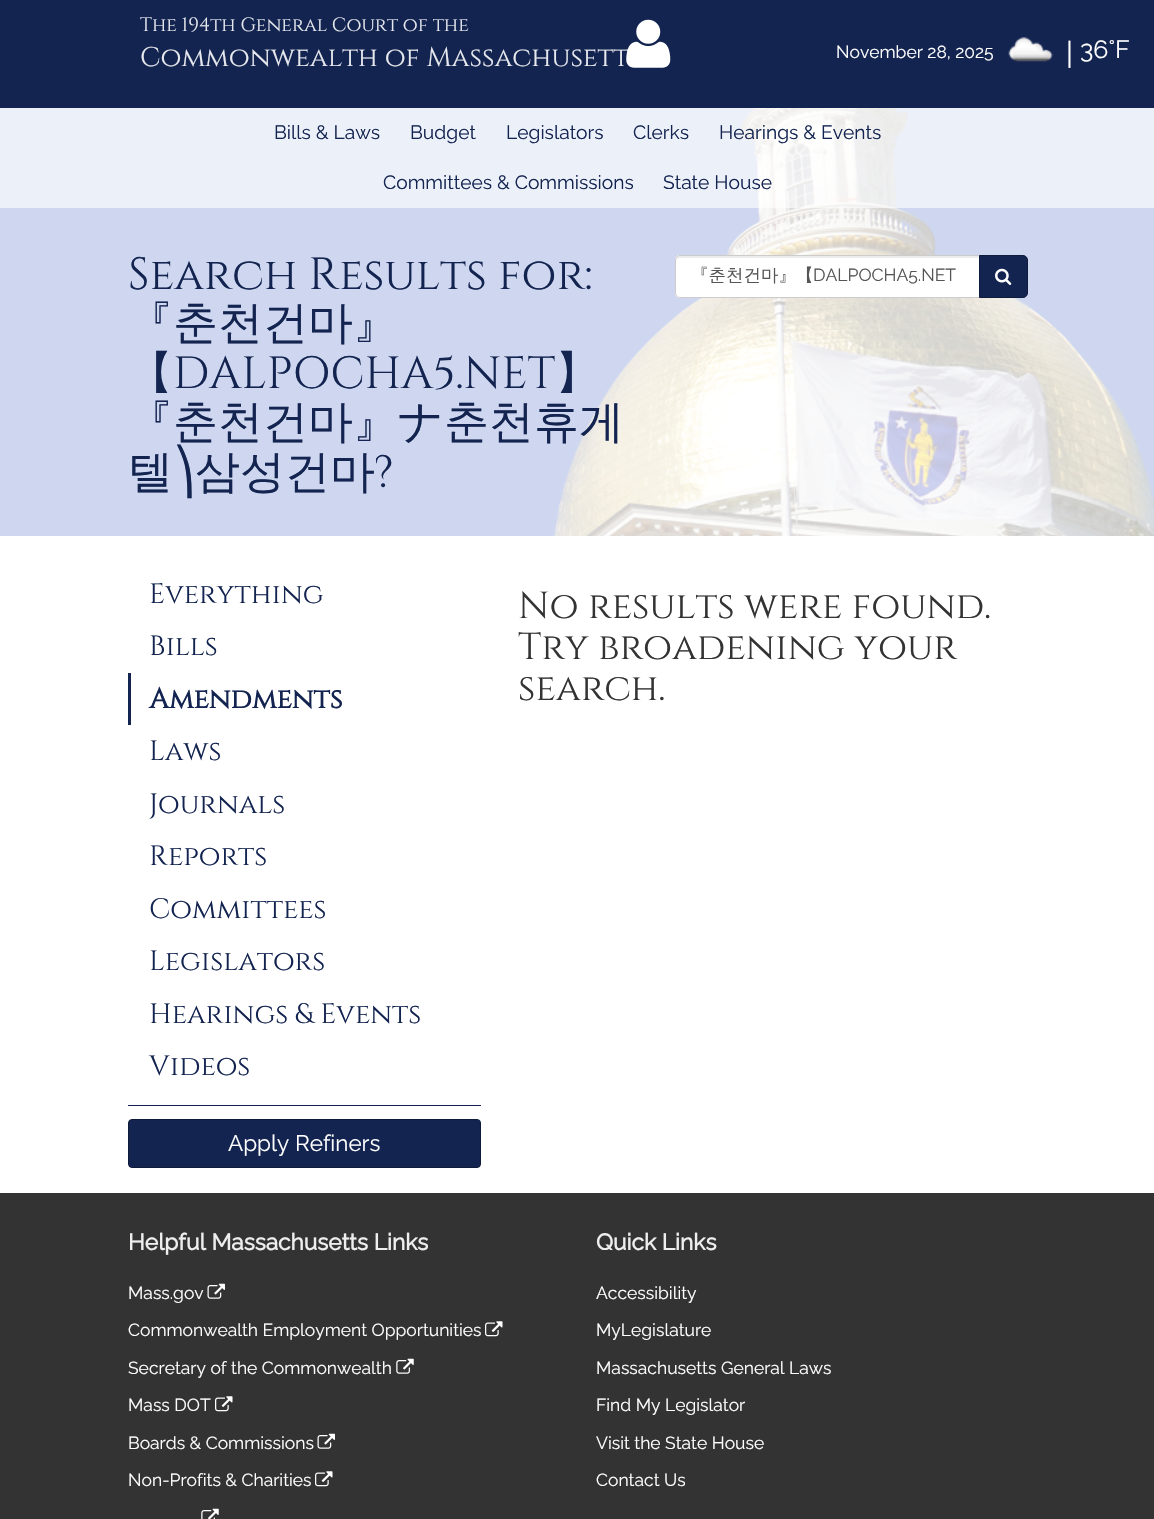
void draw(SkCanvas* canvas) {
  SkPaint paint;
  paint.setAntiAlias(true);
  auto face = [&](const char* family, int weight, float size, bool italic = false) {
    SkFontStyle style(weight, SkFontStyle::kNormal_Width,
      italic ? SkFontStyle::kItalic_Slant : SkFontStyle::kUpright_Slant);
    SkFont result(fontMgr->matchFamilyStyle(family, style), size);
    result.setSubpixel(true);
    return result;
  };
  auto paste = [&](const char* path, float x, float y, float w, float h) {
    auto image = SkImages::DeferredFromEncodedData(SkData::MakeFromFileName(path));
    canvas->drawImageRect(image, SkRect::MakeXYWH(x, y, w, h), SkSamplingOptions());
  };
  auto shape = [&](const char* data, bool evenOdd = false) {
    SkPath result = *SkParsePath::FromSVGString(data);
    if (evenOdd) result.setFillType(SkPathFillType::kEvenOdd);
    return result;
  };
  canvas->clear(0xff333333);
  paste("img/1.png", 0, 108, 1154, 428);
  paint.setColor(0xff132450);
  canvas->drawRect(SkRect::MakeXYWH(0, 0, 1154, 108), paint);
  paste("img/3.png", 1008, 37, 45, 25);
  paint.setColor(0xe6ffffff);
  canvas->drawRect(SkRect::MakeXYWH(0, 108, 1154, 100), paint);
  paint.setColor(0xbfffffff);
  canvas->drawRect(SkRect::MakeXYWH(0, 208, 1154, 328), paint);
  paint.setColor(0xffffffff);
  canvas->drawPath(shape("M680 255H980V298H680C677 298 675 296 675 293V260C675 257 677 255 680 255Z"), paint);
  paint.setColor(0xffececec);
  canvas->drawPath(shape("M680 258H979V256H680C678 256 676 258 676 260V261C676 259 678 258 680 258Z"), paint);
  paint.setStroke(true);
  paint.setStrokeWidth(1);
  paint.setColor(0xffcccccc);
  canvas->drawPath(shape("M680 255.5H979.5V297.5H680C677.5 297.5 675.5 295.5 675.5 293V260C675.5 257.5 677.5 255.5 680 255.5Z"), paint);
  paint.setStroke(false);
  paint.setColor(0xff132450);
  canvas->drawPath(shape("M979.5 255.5H1023C1025.5 255.5 1027.5 257.5 1027.5 260V293C1027.5 295.5 1025.5 297.5 1023 297.5H979.5Z"), paint);
  paint.setStroke(true);
  paint.setColor(0xff0e1b3b);
  canvas->drawPath(shape("M979.5 255.5H1023C1025.5 255.5 1027.5 257.5 1027.5 260V293C1027.5 295.5 1025.5 297.5 1023 297.5H979.5Z"), paint);
  paste("img/4.png", 995, 268, 17, 17);
  paint.setStroke(false);
  {
    const struct { float x, y, w, h; SkColor color; } items[] = {
      {0, 536, 1154, 657, 0xffffffff},
      {128, 1105, 353, 1, 0xff132450},
      {128, 673, 3, 52, 0xff132450},
    };
    for (auto [x, y, w, h, color] : items) {
      paint.setColor(color);
      canvas->drawRect(SkRect::MakeXYWH(x, y, w, h), paint);
    }
  }
  canvas->drawRoundRect(SkRect::MakeXYWH(128.5f, 1119.5f, 352, 48), 3.5f, 3.5f, paint);
  paint.setStroke(true);
  paint.setColor(0xff0e1b3b);
  canvas->drawRoundRect(SkRect::MakeXYWH(128.5f, 1119.5f, 352, 48), 3.5f, 3.5f, paint);
  paste("img/5.png", 207, 1283, 18, 16);
  paste("img/6.png", 485, 1321, 18, 16);
  paste("img/7.png", 396, 1358, 18, 16);
  paste("img/6.png", 215, 1396, 18, 16);
  paste("img/5.png", 317, 1433, 18, 16);
  paste("img/6.png", 315, 1471, 18, 16);
  paste("img/8.png", 201, 1508, 18, 11);
  auto f0 = face("Cinzel", 400, 19.25f);
  paint.setStroke(false);
  paint.setColor(0xffe7e9ee);
  canvas->drawString("The 194th General Court of the", 140, 31, f0, paint);
  auto f1 = face("Cinzel", 400, 27);
  canvas->drawString("Commonwealth of Massachusett", 140, 66, f1, paint);
  paste("img/2.png", 626, 19, 45, 49);
  auto f2 = face("Raleway", 100, 17.5f);
  paint.setColor(0xffffffff);
  canvas->drawString("November 28, 2025", 836, 58, f2, paint);
  auto f3 = face("Raleway", 100, 30);
  canvas->drawString("|", 1066, 64, f3, paint);
  auto f4 = face("Raleway", 100, 25);
  canvas->drawString("36°F", 1080, 58, f4, paint);
  auto f5 = face("Raleway", 100, 19.25f);
  paint.setColor(0xff132450);
  {
    const struct { const char* s; float x, y; } items[] = {
      {"Bills & Laws", 274, 139},
      {"Budget", 410, 139},
      {"Legislators", 506, 139},
      {"Clerks", 633, 139},
      {"Hearings & Events", 719, 139},
      {"Committees & Commissions", 383, 189},
      {"State House", 663, 189},
    };
    for (auto [s, x, y] : items) {
      canvas->drawString(s, x, y, f5, paint);
    }
  }
  auto f6 = face("Cinzel", 400, 45);
  canvas->drawString("Search Results for:", 128, 289, f6, paint);
  auto f7 = face("WenQuanYi Zen Hei", 500, 45);
  canvas->drawString("『춘천건마』", 128, 338, f7, paint);
  canvas->drawString("【", 128, 388, f7, paint);
  canvas->drawString("DALPOCHA5.NET", 173, 388, f6, paint);
  {
    const struct { const char* s; float x, y; } items[] = {
      {"】", 555, 388},
      {"『춘천건마』ナ춘천휴게", 128, 437},
      {"텔", 128, 487},
    };
    for (auto [s, x, y] : items) {
      canvas->drawString(s, x, y, f7, paint);
    }
  }
  auto f8 = face("DejaVu Sans", 400, 45);
  canvas->drawString("⎞", 173, 487, f8, paint);
  canvas->drawString("삼성건마", 195, 487, f7, paint);
  canvas->drawString("?", 375, 487, f6, paint);
  auto f9 = face("WenQuanYi Zen Hei", 500, 17.5f);
  paint.setColor(0xff555555);
  canvas->drawString("『춘천건마』【", 691, 281, f9, paint);
  canvas->drawString("DALPOCHA5.NET", 813, 281, f2, paint);
  auto f10 = face("Cinzel", 400, 28);
  paint.setColor(0xff132450);
  canvas->drawString("Everything", 149, 603, f10, paint);
  canvas->drawString("Bills", 149, 655, f10, paint);
  auto f11 = face("Cinzel", 700, 28);
  canvas->drawString("Amendments", 149, 708, f11, paint);
  {
    const struct { const char* s; float x, y; } items[] = {
      {"Laws", 149, 760},
      {"Journals", 149, 813},
      {"Reports", 149, 865},
      {"Committees", 149, 918},
      {"Legislators", 149, 970},
      {"Hearings & Events", 149, 1023},
      {"Videos", 149, 1075},
    };
    for (auto [s, x, y] : items) {
      canvas->drawString(s, x, y, f10, paint);
    }
  }
  auto f12 = face("Raleway", 100, 22.5f);
  paint.setColor(0xffffffff);
  canvas->drawString("Apply Refiners", 228, 1151, f12, paint);
  auto f13 = face("Cinzel", 400, 37.5f);
  paint.setColor(0xff333333);
  {
    const struct { const char* s; float x, y; } items[] = {
      {"No results were found.", 518, 618},
      {"Try broadening your", 518, 659},
      {"search.", 518, 700},
    };
    for (auto [s, x, y] : items) {
      canvas->drawString(s, x, y, f13, paint);
    }
  }
  auto f14 = face("Raleway", 700, 22.75f);
  paint.setColor(0xffeeeeee);
  canvas->drawString("Helpful Massachusetts Links", 128, 1250, f14, paint);
  paint.setColor(0xffffffff);
  {
    const struct { const char* s; float x, y; } items[] = {
      {"Mass.gov", 128, 1299},
      {"Commonwealth Employment Opportunities", 128, 1336},
      {"Secretary of the Commonwealth", 128, 1374},
      {"Mass DOT", 128, 1411},
      {"Boards & Commissions", 128, 1449},
      {"Non-Profits & Charities", 128, 1486},
    };
    for (auto [s, x, y] : items) {
      canvas->drawString(s, x, y, f2, paint);
    }
  }
  paint.setColor(0xffeeeeee);
  canvas->drawString("Quick Links", 596, 1250, f14, paint);
  paint.setColor(0xffffffff);
  {
    const struct { const char* s; float x, y; } items[] = {
      {"Accessibility", 596, 1299},
      {"MyLegislature", 596, 1336},
      {"Massachusetts General Laws", 596, 1374},
      {"Find My Legislator", 596, 1411},
      {"Visit the State House", 596, 1449},
      {"Contact Us", 596, 1486},
    };
    for (auto [s, x, y] : items) {
      canvas->drawString(s, x, y, f2, paint);
    }
  }
}
